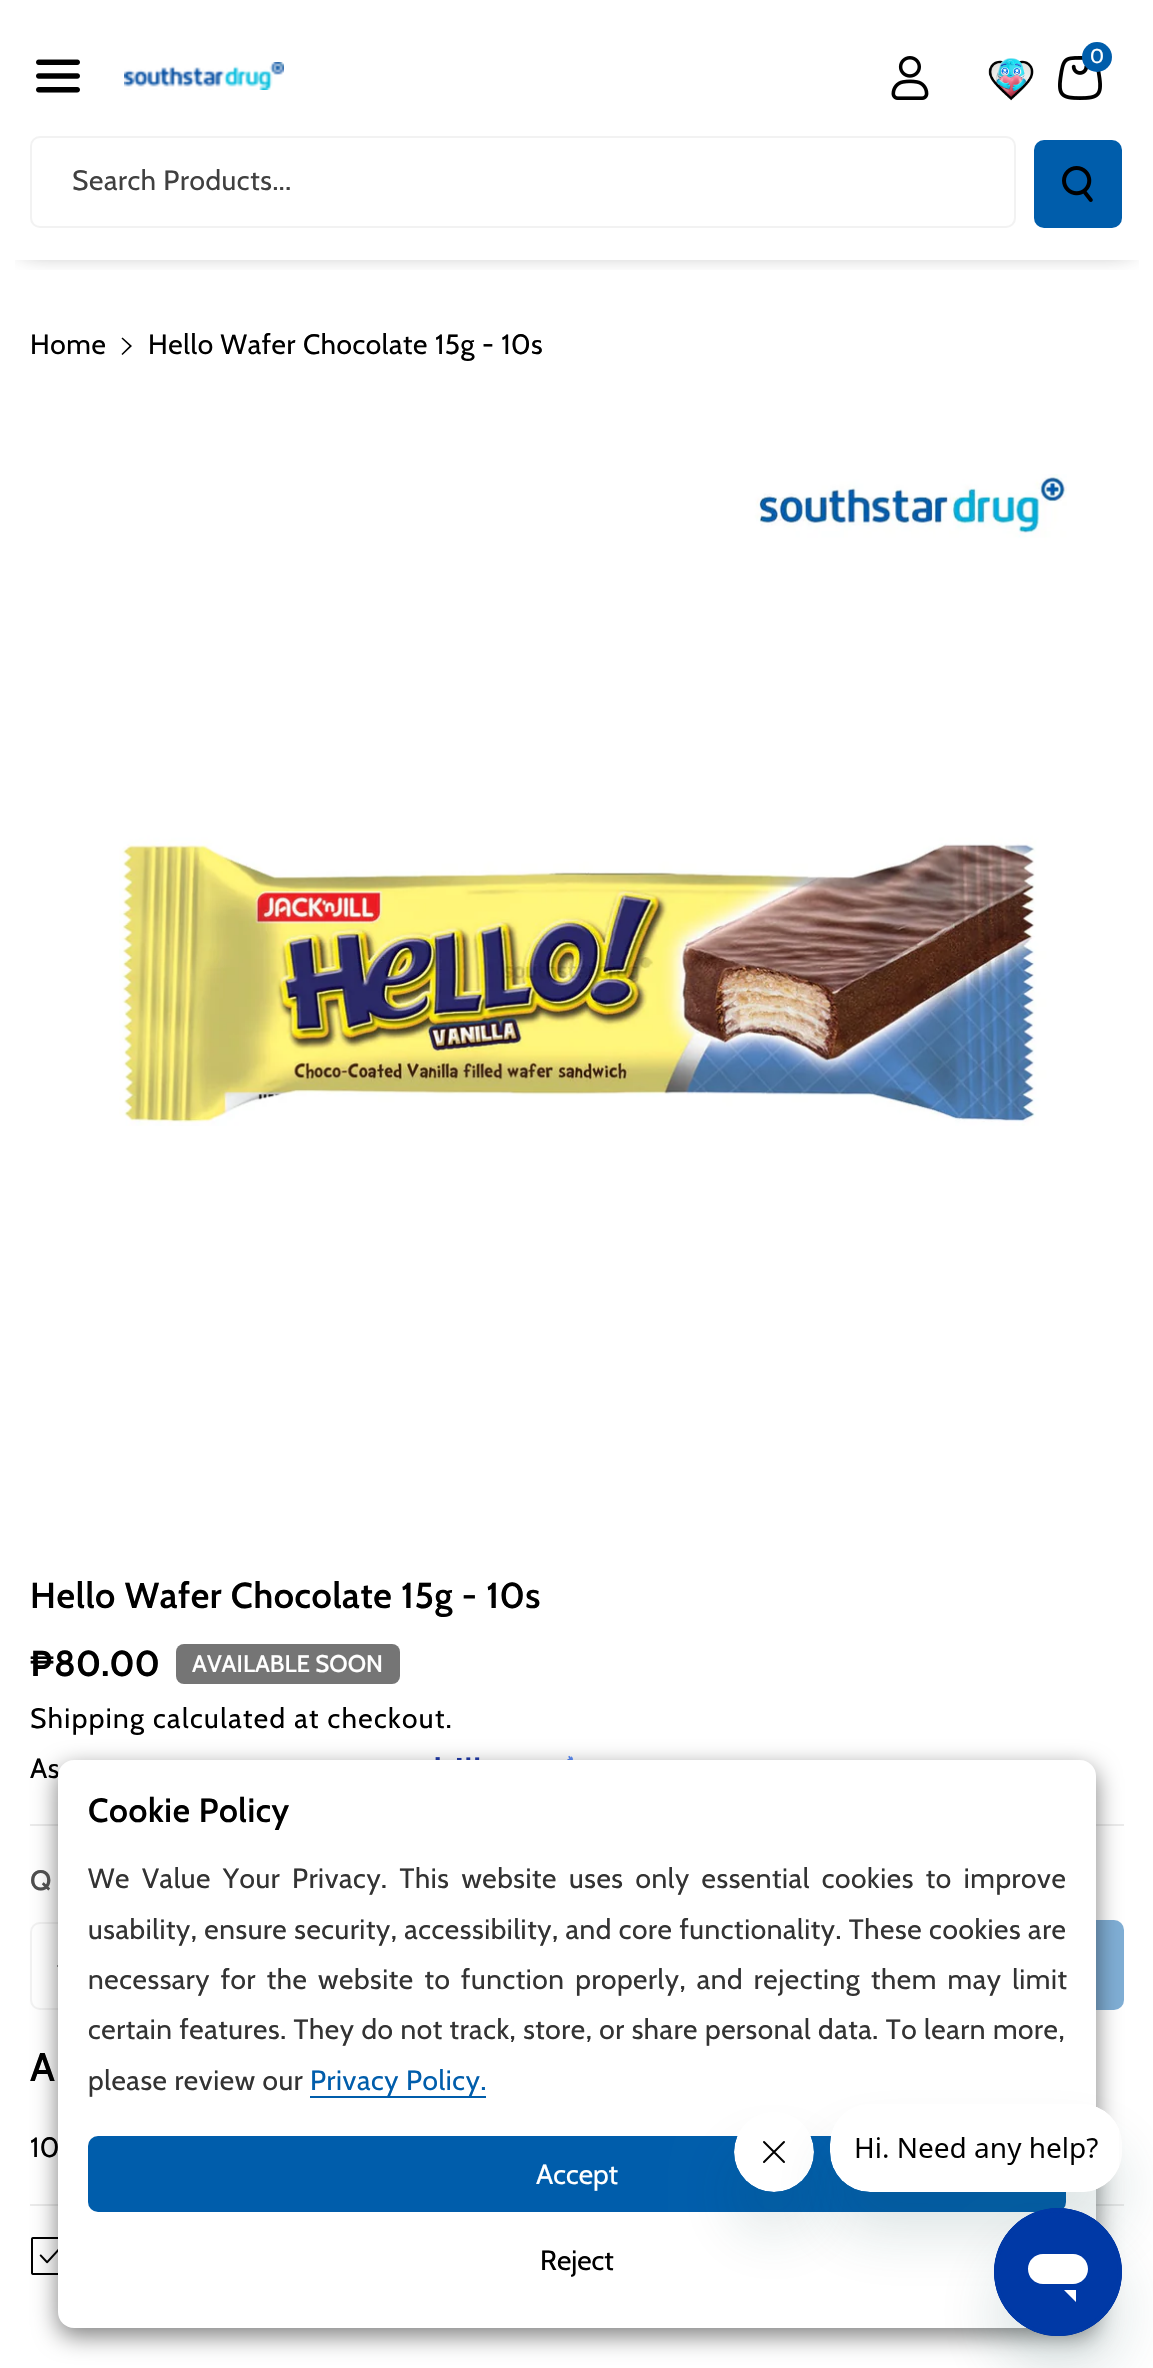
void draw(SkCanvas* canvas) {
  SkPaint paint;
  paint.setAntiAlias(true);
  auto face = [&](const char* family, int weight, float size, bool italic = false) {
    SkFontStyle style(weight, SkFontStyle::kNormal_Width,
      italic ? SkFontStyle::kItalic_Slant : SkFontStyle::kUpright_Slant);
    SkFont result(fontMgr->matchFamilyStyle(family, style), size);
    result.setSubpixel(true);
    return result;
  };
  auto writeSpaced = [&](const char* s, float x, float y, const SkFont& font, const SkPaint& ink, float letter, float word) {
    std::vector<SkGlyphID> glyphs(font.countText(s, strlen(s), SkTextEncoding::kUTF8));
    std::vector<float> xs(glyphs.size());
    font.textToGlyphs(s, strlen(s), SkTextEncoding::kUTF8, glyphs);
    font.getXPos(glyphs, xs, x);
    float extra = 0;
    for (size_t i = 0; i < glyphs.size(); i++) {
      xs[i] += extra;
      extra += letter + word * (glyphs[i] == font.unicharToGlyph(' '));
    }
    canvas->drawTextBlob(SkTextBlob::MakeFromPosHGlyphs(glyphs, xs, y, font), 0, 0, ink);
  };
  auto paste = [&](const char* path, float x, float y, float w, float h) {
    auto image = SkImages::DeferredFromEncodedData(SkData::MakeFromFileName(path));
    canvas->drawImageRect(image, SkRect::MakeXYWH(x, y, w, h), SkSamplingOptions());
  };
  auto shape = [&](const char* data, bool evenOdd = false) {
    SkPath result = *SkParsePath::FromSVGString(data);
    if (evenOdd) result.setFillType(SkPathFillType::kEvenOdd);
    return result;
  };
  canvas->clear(0xffffffff);
  canvas->save();
  canvas->clipRect(SkRect::MakeXYWH(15, 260, 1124, 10));
  paint.setColor(0x99121212);
  paint.setMaskFilter(SkMaskFilter::MakeBlur(kNormal_SkBlurStyle, 12));
  canvas->drawRect(SkRect::MakeXYWH(24, 36, 1106, 212), paint);
  paint.setMaskFilter(nullptr);
  canvas->restore();
  paste("img/1.png", 891, 56, 38, 44);
  paste("img/2.png", 988, 58, 46, 43);
  paste("img/3.png", 1058, 56, 44, 44);
  paint.setColor(0xff005dab);
  canvas->drawCircle(1097, 57, 15, paint);
  paste("img/4.png", 36, 59, 44, 34);
  paste("img/5.png", 124, 62, 160, 28);
  paint.setStroke(true);
  paint.setStrokeWidth(2);
  paint.setColor(0xfff2f2f2);
  canvas->drawRoundRect(SkRect::MakeXYWH(31, 137, 984, 90), 9, 9, paint);
  paint.setStroke(false);
  paint.setColor(0xff005dab);
  canvas->drawRoundRect(SkRect::MakeXYWH(1034, 140, 88, 88), 10, 10, paint);
  paste("img/6.png", 1062, 166, 31, 36);
  paint.setColor(0xff000000);
  canvas->drawPath(shape("M121.5 354L122.5 355L132 346L122.5 337.5L121.5 338.5L129.5 346Z"), paint);
  paste("img/7.png", 119, 474, 948, 652);
  paint.setColor(0xffebebeb);
  canvas->drawRect(SkRect::MakeXYWH(30, 1824, 1094, 2), paint);
  paint.setColor(0xff757575);
  canvas->drawRoundRect(SkRect::MakeXYWH(176, 1644, 224, 40), 8, 8, paint);
  paste("img/8.png", 435, 1755, 139, 5);
  paste("img/9.png", 57, 1965, 1, 2);
  paint.setStroke(true);
  paint.setColor(0xfff2f2f2);
  canvas->drawRoundRect(SkRect::MakeXYWH(31, 1923, 266, 86), 9, 9, paint);
  paint.setStroke(false);
  paint.setColor(0xff80aed5);
  canvas->drawRoundRect(SkRect::MakeXYWH(318, 1920, 806, 90), 10, 10, paint);
  paint.setColor(0xffebebeb);
  canvas->drawRect(SkRect::MakeXYWH(30, 2204, 1094, 2), paint);
  paste("img/10.png", 31, 2237, 27, 38);
  paint.setColor(0x80000000);
  paint.setMaskFilter(SkMaskFilter::MakeBlur(kNormal_SkBlurStyle, 12));
  canvas->drawRoundRect(SkRect::MakeXYWH(58, 1768, 1038, 568), 16, 16, paint);
  paint.setMaskFilter(nullptr);
  auto f0 = face("Cabin", 400, 20);
  paint.setColor(0xffffffff);
  writeSpaced("0", 1090, 63, f0, paint, 0.6f, 0);
  auto f1 = face("Cabin", 400, 28);
  paint.setColor(0xff404040);
  writeSpaced("Search Products...", 72, 190, f1, paint, 0.6f, 0);
  paint.setColor(0xff000000);
  writeSpaced("Home", 30, 354, f1, paint, 0.6f, 0);
  writeSpaced("Hello Wafer Chocolate 15g - 10s", 148, 354, f1, paint, 0.6f, 0);
  auto f2 = face("Cabin", 600, 36);
  writeSpaced("Hello Wafer Chocolate 15g - 10s", 30, 1608, f2, paint, 0.6f, 0);
  auto f3 = face("Cabin", 700, 36);
  canvas->drawString("₱80.00", 30, 1676, f3, paint);
  auto f4 = face("Cabin", 500, 24);
  paint.setColor(0xffffffff);
  canvas->drawString("AVAILABLE SOON", 192, 1672, f4, paint);
  paint.setColor(0xff000000);
  writeSpaced("Shipping", 30, 1728, f1, paint, 1.4f, 0);
  writeSpaced("calculated at checkout.", 153, 1728, f1, paint, 1.4f, 0);
  writeSpaced("As", 30, 1778, f1, paint, 0.6f, 0);
  auto f5 = face("Cabin", 500, 28);
  paint.setColor(0xff4d4d4d);
  writeSpaced("Q", 30, 1890, f5, paint, 0.6f, 0);
  auto f6 = face("Cabin", 600, 40);
  paint.setColor(0xff000000);
  writeSpaced("A", 30, 2081, f6, paint, 0.6f, 0);
  writeSpaced("10", 30, 2157, f1, paint, 0.6f, 0);
  paint.setColor(0xffffffff);
  canvas->drawRoundRect(SkRect::MakeXYWH(58, 1760, 1038, 568), 16, 16, paint);
  auto f7 = face("Cabin", 600, 33.5f);
  paint.setColor(0xff000000);
  writeSpaced("Cookie Policy", 88, 1822, f7, paint, 0.6f, 0);
  paint.setColor(0xff333333);
  writeSpaced("We Value Your Privacy. This website uses only essential cookies to improve", 88, 1888, f1, paint, 0.6f, 5);
  writeSpaced("usability, ensure security, accessibility, and core functionality. These cookies are", 88, 1939, f1, paint, 0.6f, 0);
  writeSpaced("necessary for the website to function properly, and rejecting them may limit", 88, 1989, f1, paint, 0.6f, 3.75f);
  writeSpaced("certain features. They do not track, store, or share personal data. To learn more,", 88, 2039, f1, paint, 0.6f, 0);
  writeSpaced("please review our", 88, 2090, f1, paint, 0.6f, 0);
  paint.setColor(0xff005dab);
  canvas->drawRect(SkRect::MakeXYWH(310, 2096, 176, 2), paint);
  writeSpaced("Privacy Policy.", 310, 2090, f1, paint, 0.6f, 0);
  canvas->drawRoundRect(SkRect::MakeXYWH(88, 2136, 978, 76), 10, 10, paint);
  paint.setColor(0xffffffff);
  canvas->drawString("Accept", 536, 2184, f1, paint);
  paint.setColor(0xff000000);
  canvas->drawString("Reject", 540, 2270, f1, paint);
  canvas->save();
  canvas->clipPath(shape("M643 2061H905V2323H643ZM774 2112C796 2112 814 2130 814 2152C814 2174 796 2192 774 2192C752 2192 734 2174 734 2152C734 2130 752 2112 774 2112Z", true), true);
  paint.setColor(0x2617494d);
  paint.setMaskFilter(SkMaskFilter::MakeBlur(kNormal_SkBlurStyle, 30));
  canvas->drawRoundRect(SkRect::MakeXYWH(734, 2152, 80, 80), 40, 40, paint);
  paint.setMaskFilter(nullptr);
  canvas->restore();
  paste("img/12.png", 734, 2136, 80, 56);
  canvas->save();
  canvas->clipPath(shape("M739 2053H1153V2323H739ZM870 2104H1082C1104 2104 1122 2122 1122 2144V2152C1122 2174 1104 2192 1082 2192H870C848 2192 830 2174 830 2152V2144C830 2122 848 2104 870 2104Z", true), true);
  paint.setMaskFilter(SkMaskFilter::MakeBlur(kNormal_SkBlurStyle, 30));
  canvas->drawRoundRect(SkRect::MakeXYWH(830, 2144, 292, 88), 40, 40, paint);
  paint.setMaskFilter(nullptr);
  canvas->restore();
  paste("img/11.png", 830, 2107, 289, 85);
  paint.setMaskFilter(SkMaskFilter::MakeBlur(kNormal_SkBlurStyle, 30));
  canvas->drawRoundRect(SkRect::MakeXYWH(994, 2248, 128, 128), 64, 64, paint);
  paint.setMaskFilter(nullptr);
  paste("img/13.png", 994, 2208, 128, 128);
}
